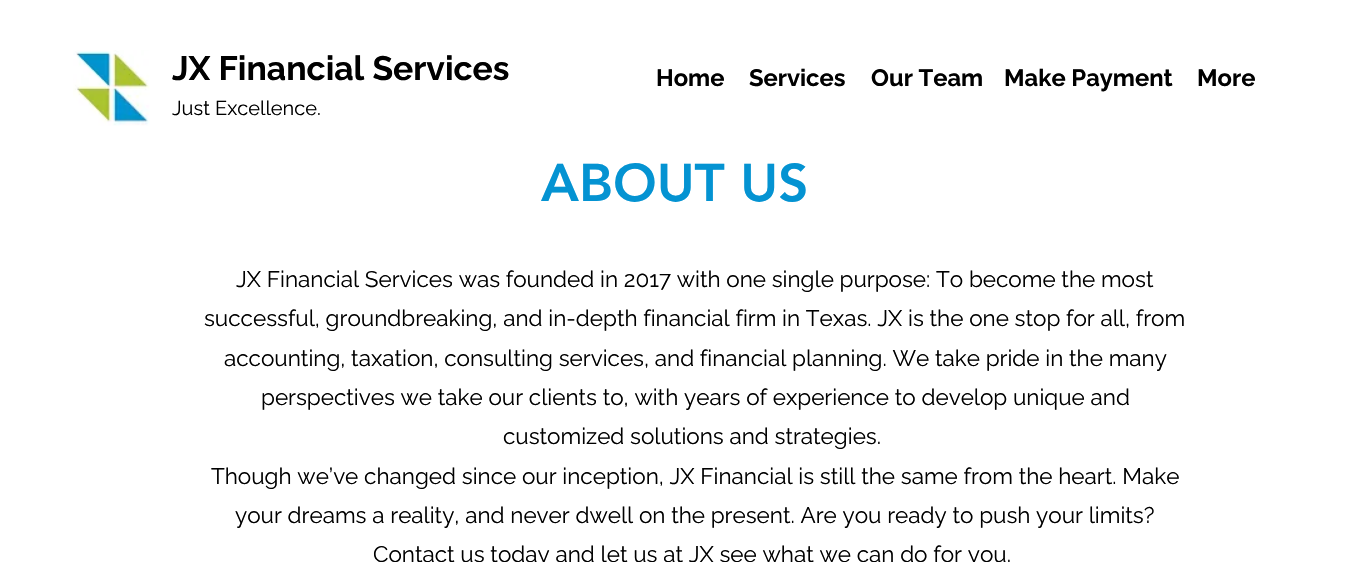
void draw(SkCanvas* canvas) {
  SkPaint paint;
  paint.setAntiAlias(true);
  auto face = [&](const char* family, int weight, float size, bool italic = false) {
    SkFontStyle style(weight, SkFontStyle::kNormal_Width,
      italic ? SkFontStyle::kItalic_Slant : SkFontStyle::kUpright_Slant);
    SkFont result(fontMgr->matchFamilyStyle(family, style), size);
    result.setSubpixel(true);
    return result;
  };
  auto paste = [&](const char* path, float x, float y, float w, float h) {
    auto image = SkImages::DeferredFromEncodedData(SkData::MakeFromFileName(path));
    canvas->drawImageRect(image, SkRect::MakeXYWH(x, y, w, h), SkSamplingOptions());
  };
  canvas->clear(0xffffffff);
  paste("img/1.png", 73, 50, 77, 76);
  auto f0 = face("Raleway", 700, 33.75f);
  paint.setColor(0xff000000);
  canvas->drawString("JX Financial Services", 172, 80, f0, paint);
  auto f1 = face("Raleway", 700, 23.75f);
  {
    const struct { const char* s; float x, y; } items[] = {
      {"Home", 656, 86},
      {"Services", 749, 86},
      {"Our Team", 871, 86},
      {"Make Payment", 1004, 86},
      {"More", 1197, 86},
    };
    for (auto [s, x, y] : items) {
      canvas->drawString(s, x, y, f1, paint);
    }
  }
  auto f2 = face("Raleway", 400, 20);
  canvas->drawString("Just Excellence.", 172, 115, f2, paint);
  auto f3 = face("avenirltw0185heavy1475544", 900, 52.5f);
  paint.setColor(0xff0493d2);
  canvas->drawString("ABOUT US", 541, 201, f3, paint);
  auto f4 = face("Raleway", 400, 22.5f);
  paint.setColor(0xff000000);
  {
    const struct { const char* s; float x, y; } items[] = {
      {"JX Financial Services was founded in 2017 with one single purpose: To become the most", 236, 287},
      {"successful, groundbreaking, and in-depth financial firm in Texas. JX is the one stop for all, from", 204, 326},
      {"accounting, taxation, consulting services, and financial planning. We take pride in the many", 224, 366},
      {"perspectives we take our clients to, with years of experience to develop unique and", 261, 405},
      {"customized solutions and strategies.", 503, 444},
      {"Though we’ve changed since our inception, JX Financial is still the same from the heart. Make", 211, 484},
      {"your dreams a reality, and never dwell on the present. Are you ready to push your limits?", 235, 523},
      {"Contact us today and let us at JX see what we can do for you.", 373, 562},
    };
    for (auto [s, x, y] : items) {
      canvas->drawString(s, x, y, f4, paint);
    }
  }
}
